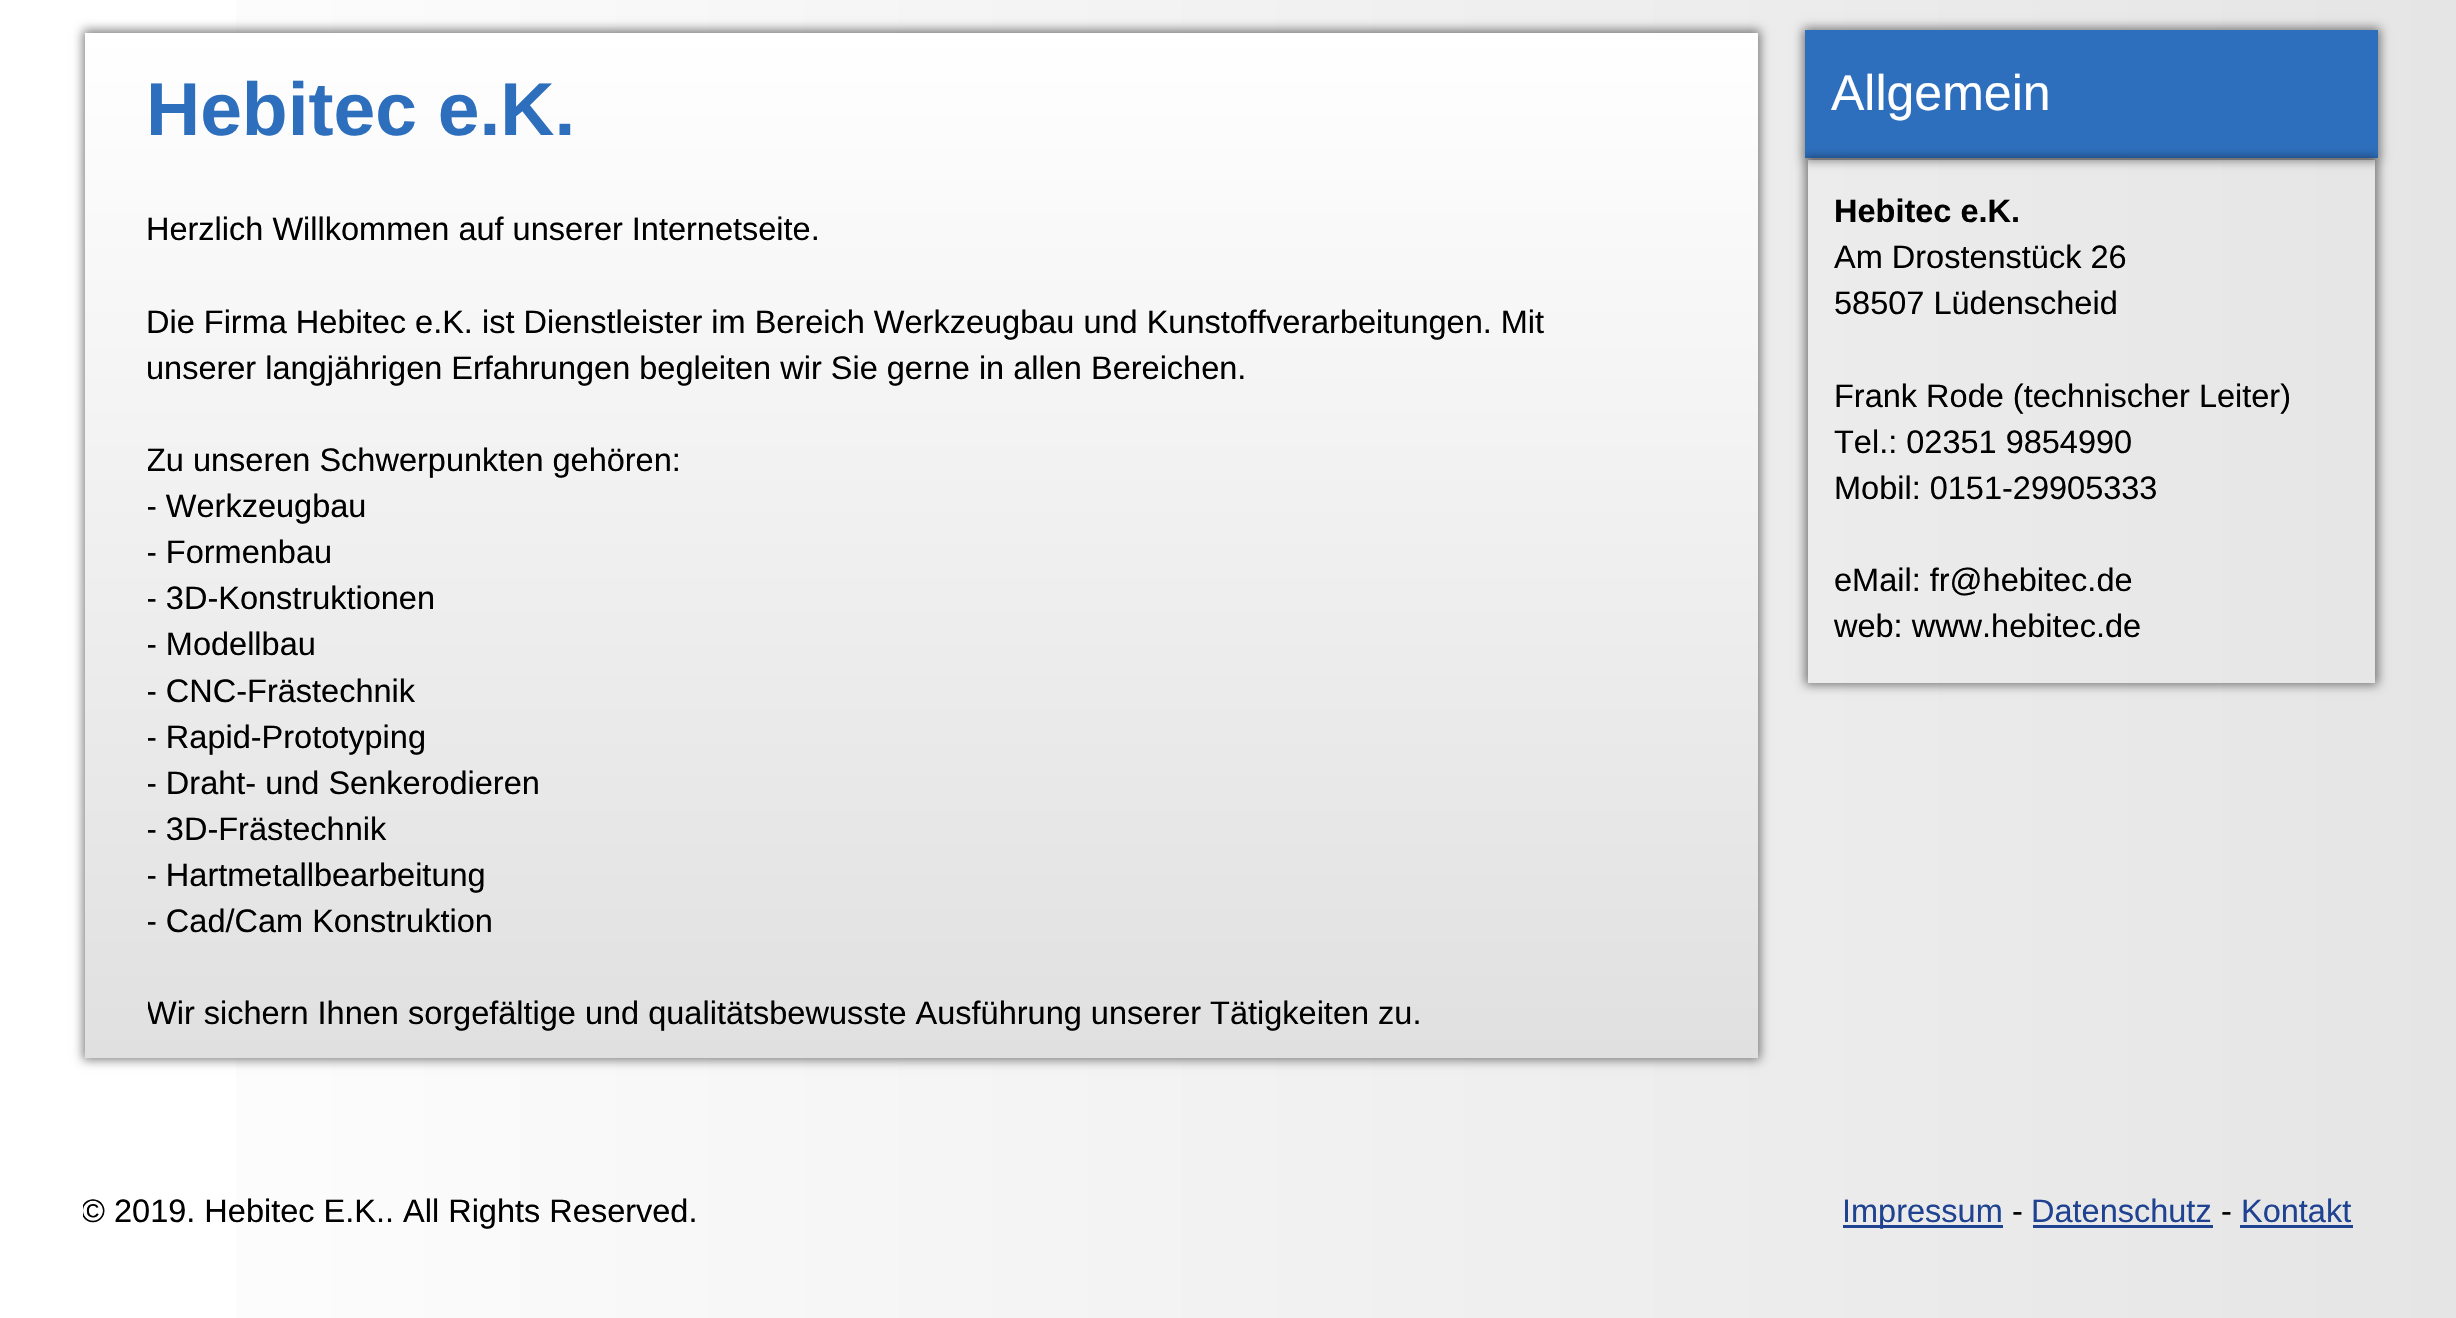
void draw(SkCanvas* canvas) {
  SkPaint paint;
  paint.setAntiAlias(true);
  auto face = [&](const char* family, int weight, float size, bool italic = false) {
    SkFontStyle style(weight, SkFontStyle::kNormal_Width,
      italic ? SkFontStyle::kItalic_Slant : SkFontStyle::kUpright_Slant);
    SkFont result(fontMgr->matchFamilyStyle(family, style), size);
    result.setSubpixel(true);
    return result;
  };
  auto shape = [&](const char* data, bool evenOdd = false) {
    SkPath result = *SkParsePath::FromSVGString(data);
    if (evenOdd) result.setFillType(SkPathFillType::kEvenOdd);
    return result;
  };
  canvas->clear(0xffffffff);
  {
    const SkColor colors[] = {0xffe5e5e5, 0xffffffff};
    const float stops[] = {0, 1};
    const SkPoint ends[] = {{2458, 660}, {0, 660}};
    paint.setShader(SkGradientShader::MakeLinear(ends, colors, stops, 2, SkTileMode::kClamp));
    paint.setAlpha(255);
  }
  canvas->drawRect(SkRect::MakeXYWH(236, 0, 2220, 1318), paint);
  paint.setShader(nullptr);
  paint.setColor(0x80000000);
  paint.setMaskFilter(SkMaskFilter::MakeBlur(kNormal_SkBlurStyle, 5));
  canvas->drawRect(SkRect::MakeXYWH(83, 30, 1677, 1030), paint);
  paint.setMaskFilter(nullptr);
  {
    const SkColor colors[] = {0xffffffff, 0xffe0e0e0};
    const float stops[] = {0, 1};
    const SkPoint ends[] = {{921, 32}, {921, 1058}};
    paint.setShader(SkGradientShader::MakeLinear(ends, colors, stops, 2, SkTileMode::kClamp));
    paint.setAlpha(255);
  }
  canvas->drawRect(SkRect::MakeXYWH(85, 33, 1673, 1025), paint);
  paint.setShader(nullptr);
  paint.setColor(0x80000000);
  paint.setMaskFilter(SkMaskFilter::MakeBlur(kNormal_SkBlurStyle, 5));
  canvas->drawRect(SkRect::MakeXYWH(1803, 28, 577, 132), paint);
  paint.setMaskFilter(nullptr);
  paint.setColor(0xff2e6fbd);
  canvas->drawRect(SkRect::MakeXYWH(1805, 30, 573, 128), paint);
  canvas->save();
  canvas->clipPath(shape("M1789 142H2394V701H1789ZM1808 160H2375V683H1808Z", true), true);
  paint.setColor(0x80000000);
  paint.setMaskFilter(SkMaskFilter::MakeBlur(kNormal_SkBlurStyle, 5));
  canvas->drawRect(SkRect::MakeXYWH(1805, 158, 573, 527), paint);
  paint.setMaskFilter(nullptr);
  canvas->restore();
  {
    const struct { float x, y, w, h; SkColor color; } items[] = {
      {1843, 1225, 160, 3, 0xff1f4391},
      {2033, 1225, 180, 3, 0xff1f4391},
      {2240, 1225, 113, 3, 0xff1f4391},
    };
    for (auto [x, y, w, h, color] : items) {
      paint.setColor(color);
      canvas->drawRect(SkRect::MakeXYWH(x, y, w, h), paint);
    }
  }
  auto f0 = face("Liberation Sans", 700, 75);
  paint.setColor(0xff2e6fbd);
  canvas->drawString("Hebitec e.K.", 146, 135, f0, paint);
  auto f1 = face("Liberation Sans", 400, 32.5f);
  paint.setColor(0xff000000);
  {
    const struct { const char* s; float x, y; } items[] = {
      {"Herzlich Willkommen auf unserer Internetseite.", 146, 240},
      {"Die Firma Hebitec e.K. ist Dienstleister im Bereich Werkzeugbau und Kunstoffverarbeitungen. Mit", 146, 333},
      {"unserer langjährigen Erfahrungen begleiten wir Sie gerne in allen", 146, 379},
      {"Bereichen.", 1091, 379},
    };
    for (auto [s, x, y] : items) {
      canvas->drawString(s, x, y, f1, paint);
    }
  }
  canvas->save();
  canvas->clipRect(SkRect::MakeXYWH(148, 33, 1610, 1025));
  {
    const struct { const char* s; float x, y; } items[] = {
      {"Zu unseren Schwerpunkten gehören:", 146, 471},
      {"- Werkzeugbau", 146, 517},
      {"- Formenbau", 146, 563},
      {"- 3D-Konstruktionen", 146, 609},
      {"- Modellbau", 146, 655},
      {"- CNC-Frästechnik", 146, 702},
      {"- Rapid-Prototyping", 146, 748},
      {"- Draht- und Senkerodieren", 146, 794},
      {"- 3D-Frästechnik", 146, 840},
      {"- Hartmetallbearbeitung", 146, 886},
      {"- Cad/Cam Konstruktion", 146, 932},
      {"Wir sichern Ihnen sorgefältige und qualitätsbewusste Ausführung unserer Tätigkeiten zu.", 146, 1024},
    };
    for (auto [s, x, y] : items) {
      canvas->drawString(s, x, y, f1, paint);
    }
  }
  canvas->restore();
  auto f2 = face("Liberation Sans", 400, 50);
  paint.setColor(0xffffffff);
  canvas->drawString("Allgemein", 1831, 110, f2, paint);
  auto f3 = face("Liberation Sans", 700, 32.5f);
  paint.setColor(0xff000000);
  canvas->drawString("Hebitec e.K.", 1834, 222, f3, paint);
  {
    const struct { const char* s; float x, y; } items[] = {
      {"Am Drostenstück 26", 1834, 268},
      {"58507 Lüdenscheid", 1834, 314},
      {"Frank Rode (technischer Leiter)", 1834, 407},
      {"Tel.: 02351 9854990", 1834, 453},
      {"Mobil: 0151-29905333", 1834, 499},
      {"eMail: fr@hebitec.de", 1834, 591},
      {"web: www.hebitec.de", 1834, 637},
    };
    for (auto [s, x, y] : items) {
      canvas->drawString(s, x, y, f1, paint);
    }
  }
  canvas->save();
  canvas->clipRect(SkRect::MakeXYWH(83, 1173, 1147, 82));
  canvas->drawString("© 2019. Hebitec E.K.. All Rights Reserved.", 81, 1222, f1, paint);
  canvas->restore();
  paint.setColor(0xff1f4391);
  canvas->drawString("Impressum", 1842, 1222, f1, paint);
  paint.setColor(0xff000000);
  canvas->drawString("-", 2012, 1222, f1, paint);
  paint.setColor(0xff1f4391);
  canvas->drawString("Datenschutz", 2031, 1222, f1, paint);
  paint.setColor(0xff000000);
  canvas->drawString("-", 2221, 1222, f1, paint);
  paint.setColor(0xff1f4391);
  canvas->drawString("Kontakt", 2241, 1222, f1, paint);
}
